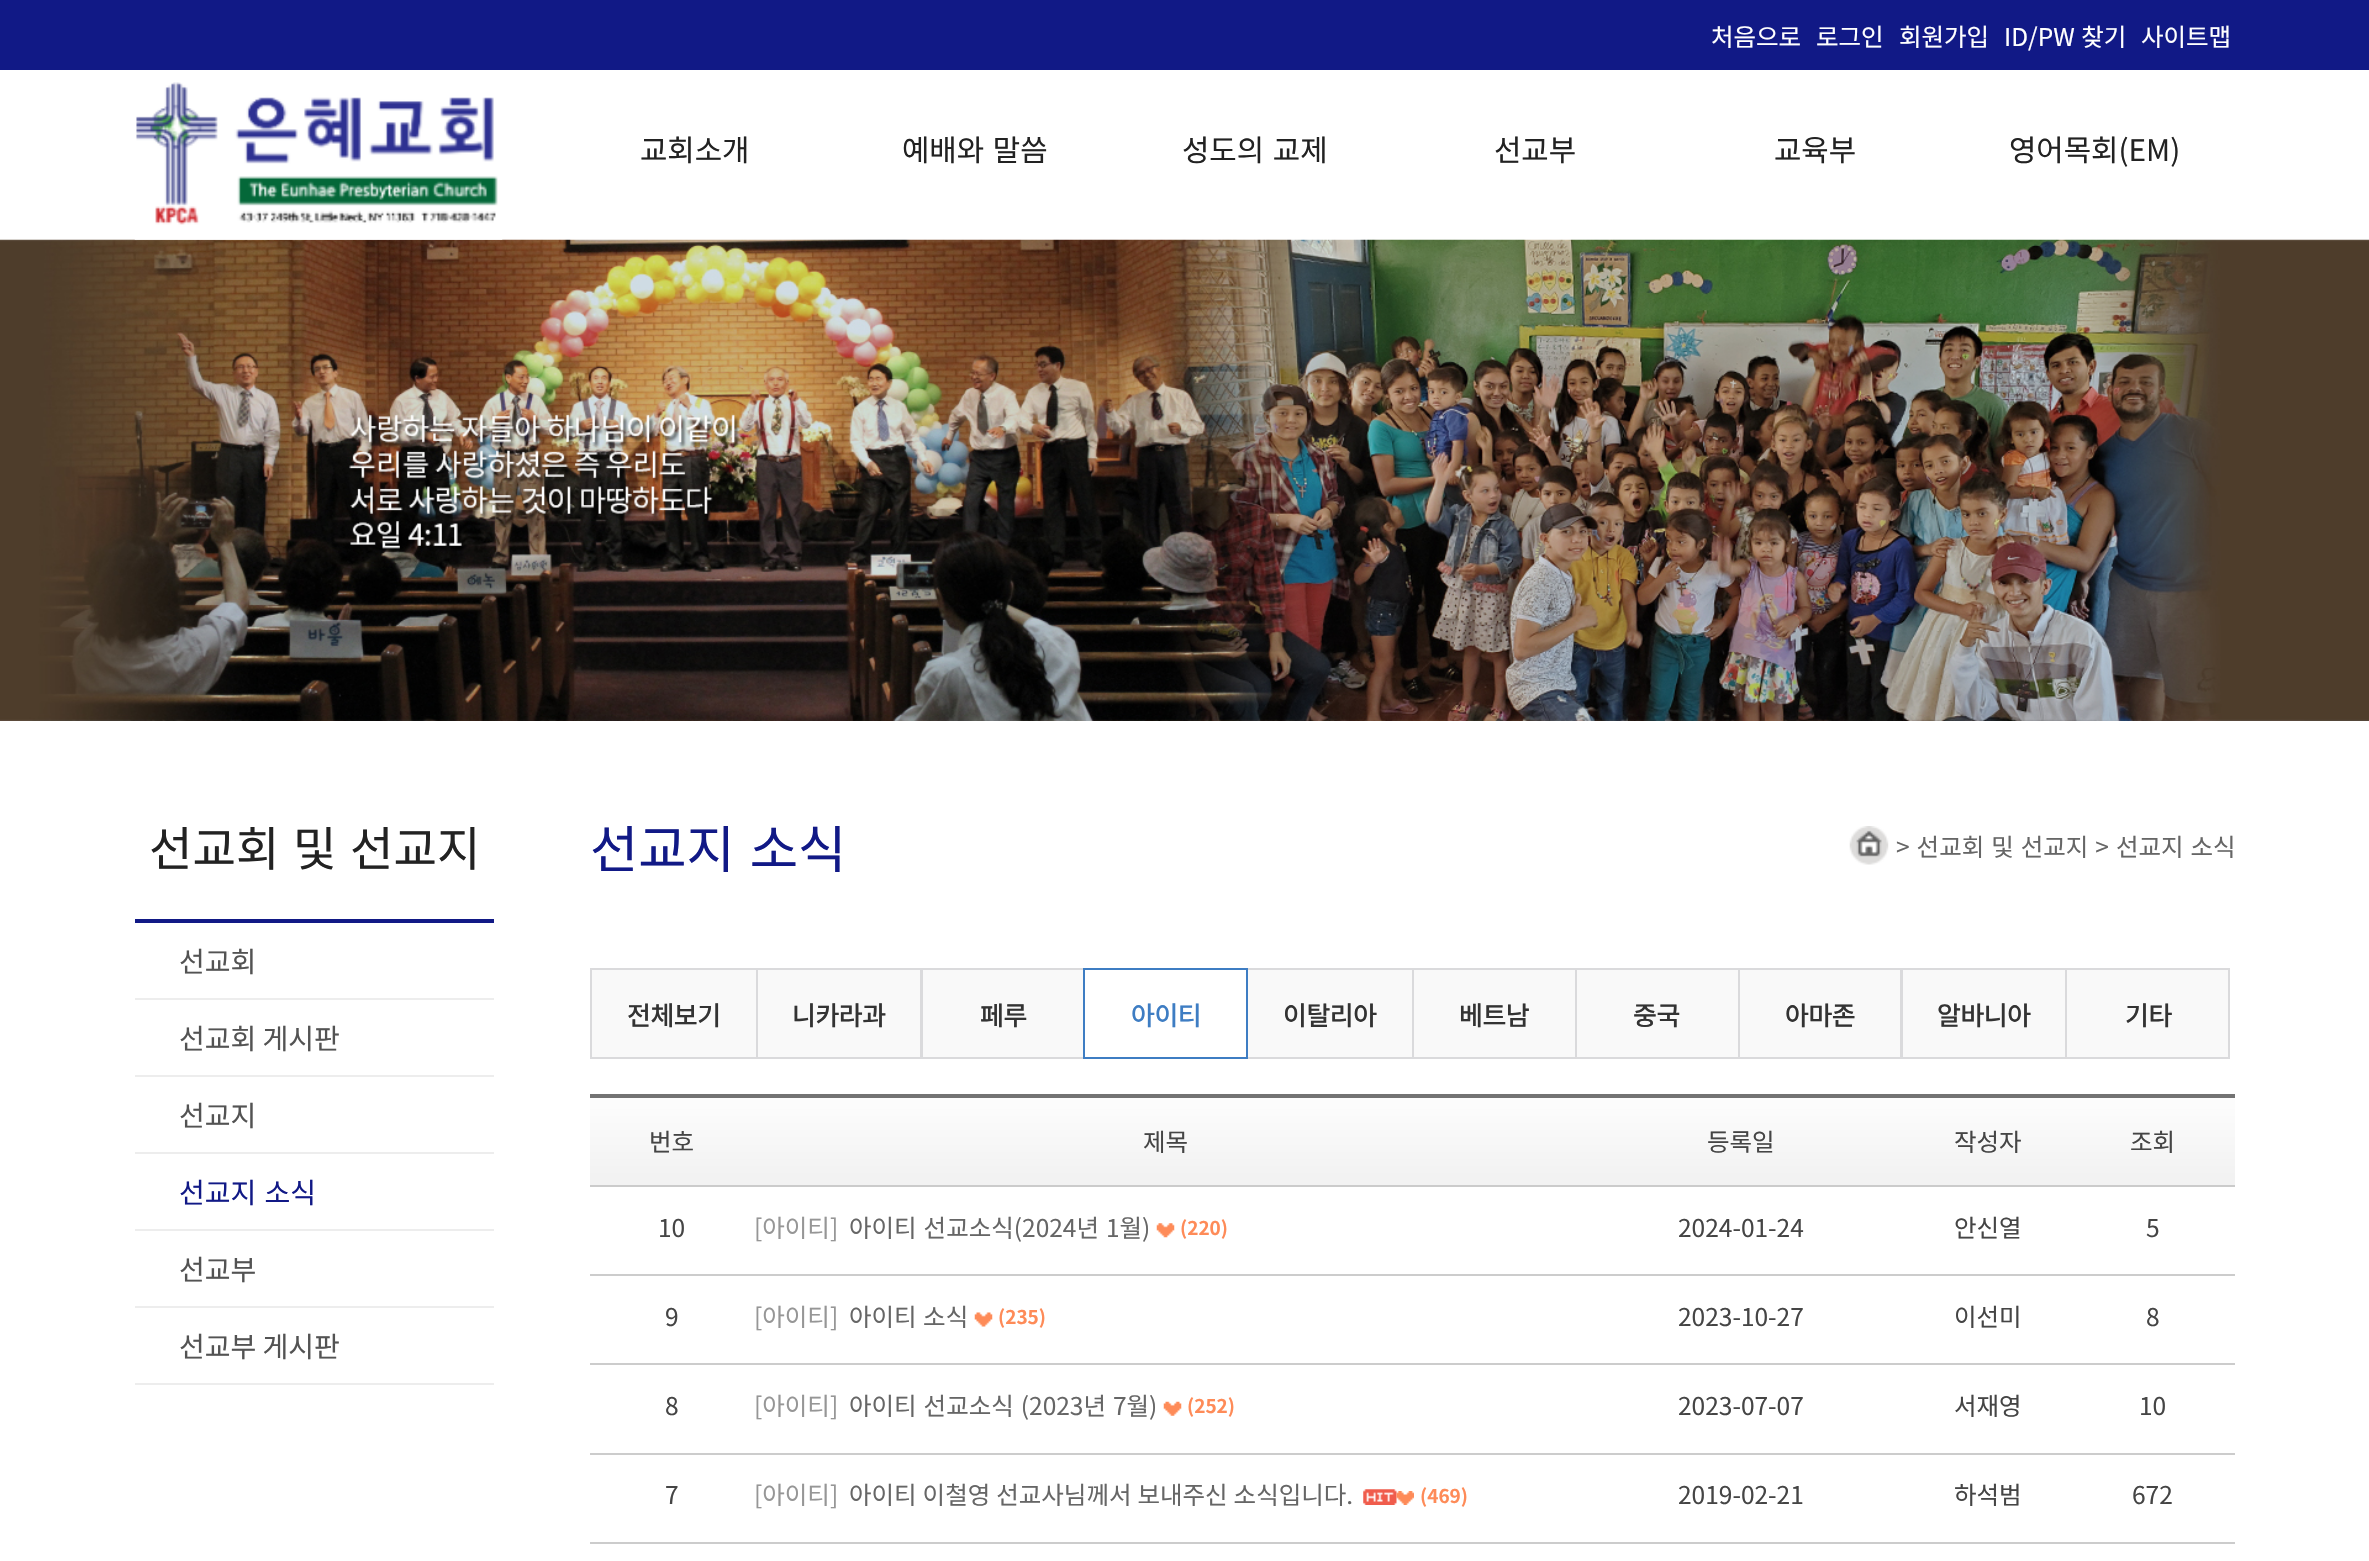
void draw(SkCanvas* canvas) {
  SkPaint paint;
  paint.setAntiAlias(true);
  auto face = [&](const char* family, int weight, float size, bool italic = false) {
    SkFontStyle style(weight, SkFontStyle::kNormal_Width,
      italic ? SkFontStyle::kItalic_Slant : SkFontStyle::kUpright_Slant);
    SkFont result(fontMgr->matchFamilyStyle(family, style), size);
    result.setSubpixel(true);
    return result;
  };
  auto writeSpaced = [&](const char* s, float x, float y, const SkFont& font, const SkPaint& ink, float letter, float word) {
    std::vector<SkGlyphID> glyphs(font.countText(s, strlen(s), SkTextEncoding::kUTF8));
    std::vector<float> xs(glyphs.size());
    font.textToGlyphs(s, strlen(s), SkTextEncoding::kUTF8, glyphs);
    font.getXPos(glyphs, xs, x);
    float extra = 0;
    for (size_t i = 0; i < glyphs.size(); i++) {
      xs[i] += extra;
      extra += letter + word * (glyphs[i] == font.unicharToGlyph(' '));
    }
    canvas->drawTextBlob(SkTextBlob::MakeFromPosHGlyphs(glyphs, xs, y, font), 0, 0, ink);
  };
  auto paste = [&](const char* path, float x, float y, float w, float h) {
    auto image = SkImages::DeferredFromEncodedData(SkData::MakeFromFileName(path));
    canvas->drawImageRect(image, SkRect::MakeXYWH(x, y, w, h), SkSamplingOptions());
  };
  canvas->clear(0xffffffff);
  paint.setColor(0xff111986);
  canvas->drawRect(SkRect::MakeXYWH(0, 0, 2369, 70), paint);
  paste("img/2.png", 0, 239, 2369, 482);
  paste("img/1.png", 134, 82, 369, 158);
  {
    const struct { float x, y, w, h; SkColor color; } items[] = {
      {135, 919, 359, 4, 0xff111986},
      {135, 998, 359, 2, 0xffededed},
      {135, 1075, 359, 2, 0xffededed},
      {135, 1152, 359, 2, 0xffededed},
      {135, 1229, 359, 2, 0xffededed},
      {135, 1306, 359, 2, 0xffededed},
      {135, 1383, 359, 2, 0xffededed},
    };
    for (auto [x, y, w, h, color] : items) {
      paint.setColor(color);
      canvas->drawRect(SkRect::MakeXYWH(x, y, w, h), paint);
    }
  }
  paste("img/3.png", 1849, 826, 40, 39);
  paint.setColor(0xfff9f9f9);
  canvas->drawRect(SkRect::MakeXYWH(591, 969, 166, 89), paint);
  paint.setStroke(true);
  paint.setStrokeWidth(2);
  paint.setColor(0xffdadadc);
  canvas->drawRect(SkRect::MakeXYWH(591, 969, 166, 89), paint);
  paint.setStroke(false);
  paint.setColor(0xfff9f9f9);
  canvas->drawRect(SkRect::MakeXYWH(757, 969, 164, 89), paint);
  paint.setStroke(true);
  paint.setColor(0xffdadadc);
  canvas->drawRect(SkRect::MakeXYWH(757, 969, 164, 89), paint);
  paint.setStroke(false);
  paint.setColor(0xfff9f9f9);
  canvas->drawRect(SkRect::MakeXYWH(922, 969, 162, 89), paint);
  paint.setStroke(true);
  paint.setColor(0xffdadadc);
  canvas->drawRect(SkRect::MakeXYWH(922, 969, 162, 89), paint);
  paint.setStroke(false);
  paint.setColor(0xfff9f9f9);
  canvas->drawRect(SkRect::MakeXYWH(1247, 969, 166, 89), paint);
  paint.setStroke(true);
  paint.setColor(0xffdadadc);
  canvas->drawRect(SkRect::MakeXYWH(1247, 969, 166, 89), paint);
  paint.setColor(0xff3e7dc3);
  canvas->drawRect(SkRect::MakeXYWH(1084, 969, 163, 89), paint);
  paint.setStroke(false);
  paint.setColor(0xfff9f9f9);
  canvas->drawRect(SkRect::MakeXYWH(1413, 969, 163, 89), paint);
  paint.setStroke(true);
  paint.setColor(0xffdadadc);
  canvas->drawRect(SkRect::MakeXYWH(1413, 969, 163, 89), paint);
  paint.setStroke(false);
  paint.setColor(0xfff9f9f9);
  canvas->drawRect(SkRect::MakeXYWH(1576, 969, 163, 89), paint);
  paint.setStroke(true);
  paint.setColor(0xffdadadc);
  canvas->drawRect(SkRect::MakeXYWH(1576, 969, 163, 89), paint);
  paint.setStroke(false);
  paint.setColor(0xfff9f9f9);
  canvas->drawRect(SkRect::MakeXYWH(1739, 969, 162, 89), paint);
  paint.setStroke(true);
  paint.setColor(0xffdadadc);
  canvas->drawRect(SkRect::MakeXYWH(1739, 969, 162, 89), paint);
  paint.setStroke(false);
  paint.setColor(0xfff9f9f9);
  canvas->drawRect(SkRect::MakeXYWH(1902, 969, 164, 89), paint);
  paint.setStroke(true);
  paint.setColor(0xffdadadc);
  canvas->drawRect(SkRect::MakeXYWH(1902, 969, 164, 89), paint);
  paint.setStroke(false);
  paint.setColor(0xfff9f9f9);
  canvas->drawRect(SkRect::MakeXYWH(2066, 969, 163, 89), paint);
  paint.setStroke(true);
  paint.setColor(0xffdadadc);
  canvas->drawRect(SkRect::MakeXYWH(2066, 969, 163, 89), paint);
  paint.setStroke(false);
  {
    const SkColor colors[] = {0xfffcfcfc, 0xfff2f2f2};
    const float stops[] = {0.09f, 0.91f};
    const SkPoint ends[] = {{1412, 1097}, {1412, 1185}};
    paint.setShader(SkGradientShader::MakeLinear(ends, colors, stops, 2, SkTileMode::kClamp));
    paint.setAlpha(255);
  }
  canvas->drawRect(SkRect::MakeXYWH(590, 1098, 1645, 87), paint);
  paint.setShader(nullptr);
  {
    const struct { float x, y, w, h; SkColor color; } items[] = {
      {590, 1094, 1645, 4, 0xff737373},
      {590, 1185, 1645, 2, 0xffcbcbcb},
      {590, 1274, 1645, 2, 0xffcccccc},
    };
    for (auto [x, y, w, h, color] : items) {
      paint.setColor(color);
      canvas->drawRect(SkRect::MakeXYWH(x, y, w, h), paint);
    }
  }
  paste("img/4.png", 1156, 1223, 19, 15);
  canvas->drawRect(SkRect::MakeXYWH(590, 1363, 1645, 2), paint);
  paste("img/5.png", 974, 1312, 19, 15);
  canvas->drawRect(SkRect::MakeXYWH(590, 1453, 1645, 2), paint);
  paste("img/6.png", 1163, 1401, 19, 15);
  canvas->drawRect(SkRect::MakeXYWH(590, 1542, 1645, 2), paint);
  paste("img/7.png", 1363, 1489, 34, 16);
  paste("img/8.png", 1396, 1491, 18, 14);
  auto f0 = face("Noto Sans KR", 400, 24.5f);
  paint.setColor(0xffffffff);
  {
    const struct { const char* s; float x, y; } items[] = {
      {"처음으로", 1711, 46},
      {"로그인", 1816, 46},
      {"회원가입", 1899, 46},
    };
    for (auto [s, x, y] : items) {
      canvas->drawString(s, x, y, f0, paint);
    }
  }
  writeSpaced("ID/PW 찾기", 2004, 46, f0, paint, 0, 1);
  canvas->drawString("사이트맵", 2141, 46, f0, paint);
  auto f1 = face("Noto Sans KR", 400, 29.75f);
  paint.setColor(0xff222222);
  canvas->drawString("교회소개", 640, 161, f1, paint);
  writeSpaced("예배와 말씀", 902, 161, f1, paint, 0, 2);
  writeSpaced("성도의 교제", 1182, 161, f1, paint, 0, 2);
  {
    const struct { const char* s; float x, y; } items[] = {
      {"선교부", 1494, 161},
      {"교육부", 1774, 161},
      {"영어목회(EM)", 2009, 161},
    };
    for (auto [s, x, y] : items) {
      canvas->drawString(s, x, y, f1, paint);
    }
  }
  auto f2 = face("Noto Sans KR", 400, 47.25f);
  writeSpaced("선교회 및 선교지", 149, 866, f2, paint, 0, 3);
  auto f3 = face("Noto Sans KR", 400, 28);
  paint.setColor(0xff535353);
  {
    const struct { const char* s; float x, y; } items[] = {
      {"선교회", 179, 972},
      {"선교회 게시판", 179, 1049},
      {"선교지", 179, 1126},
    };
    for (auto [s, x, y] : items) {
      canvas->drawString(s, x, y, f3, paint);
    }
  }
  paint.setColor(0xff111986);
  writeSpaced("선교지 소식", 179, 1203, f3, paint, 0, 2);
  paint.setColor(0xff535353);
  canvas->drawString("선교부", 179, 1280, f3, paint);
  canvas->drawString("선교부 게시판", 179, 1357, f3, paint);
  canvas->save();
  canvas->clipRect(SkRect::MakeXYWH(135, 826, 2100, 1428));
  auto f4 = face("Noto Sans KR", 400, 52.5f);
  paint.setColor(0xff111986);
  writeSpaced("선교지 소식", 590, 868, f4, paint, 0, 3);
  canvas->restore();
  paint.setColor(0xff666666);
  writeSpaced("> 선교회 및 선교지 > 선교지 소식", 1896, 856, f0, paint, 0, 1.5f);
  auto f5 = face("Noto Sans KR", 500, 26);
  paint.setColor(0xff333333);
  {
    const struct { const char* s; float x, y; } items[] = {
      {"전체보기", 627, 1025},
      {"니카라과", 792, 1025},
      {"페루", 980, 1025},
    };
    for (auto [s, x, y] : items) {
      writeSpaced(s, x, y, f5, paint, -0.5f, 0);
    }
  }
  paint.setColor(0xff3e7dc3);
  writeSpaced("아이티", 1131, 1025, f5, paint, -0.5f, 0);
  paint.setColor(0xff333333);
  {
    const struct { const char* s; float x, y; } items[] = {
      {"이탈리아", 1283, 1025},
      {"베트남", 1459, 1025},
      {"중국", 1633, 1025},
      {"아마존", 1785, 1025},
      {"알바니아", 1937, 1025},
      {"기타", 2125, 1025},
    };
    for (auto [s, x, y] : items) {
      writeSpaced(s, x, y, f5, paint, -0.5f, 0);
    }
  }
  paint.setColor(0xff454545);
  {
    const struct { const char* s; float x, y; } items[] = {
      {"번호", 649, 1151},
      {"제목", 1143, 1151},
      {"등록일", 1707, 1151},
      {"작성자", 1954, 1151},
      {"조회", 2130, 1151},
      {"10", 658, 1237},
    };
    for (auto [s, x, y] : items) {
      canvas->drawString(s, x, y, f0, paint);
    }
  }
  paint.setColor(0xff969696);
  canvas->drawString("[아이티]", 754, 1237, f0, paint);
  paint.setColor(0xff666666);
  writeSpaced("아이티 선교소식(2024년 1월)", 849, 1237, f0, paint, 0, 1.5f);
  auto f6 = face("Noto Sans KR", 700, 19);
  paint.setColor(0xfffe8b58);
  canvas->drawString("(220)", 1180, 1235, f6, paint);
  paint.setColor(0xff454545);
  {
    const struct { const char* s; float x, y; } items[] = {
      {"2024-01-24", 1678, 1237},
      {"안신열", 1954, 1237},
      {"5", 2146, 1237},
      {"9", 665, 1326},
    };
    for (auto [s, x, y] : items) {
      canvas->drawString(s, x, y, f0, paint);
    }
  }
  paint.setColor(0xff969696);
  canvas->drawString("[아이티]", 754, 1326, f0, paint);
  paint.setColor(0xff666666);
  writeSpaced("아이티 소식", 849, 1326, f0, paint, 0, 1);
  paint.setColor(0xfffe8b58);
  canvas->drawString("(235)", 998, 1324, f6, paint);
  paint.setColor(0xff454545);
  {
    const struct { const char* s; float x, y; } items[] = {
      {"2023-10-27", 1678, 1326},
      {"이선미", 1954, 1326},
      {"8", 2146, 1326},
      {"8", 665, 1415},
    };
    for (auto [s, x, y] : items) {
      canvas->drawString(s, x, y, f0, paint);
    }
  }
  paint.setColor(0xff969696);
  canvas->drawString("[아이티]", 754, 1415, f0, paint);
  paint.setColor(0xff666666);
  writeSpaced("아이티 선교소식 (2023년 7월)", 849, 1415, f0, paint, 0, 1.5f);
  paint.setColor(0xfffe8b58);
  canvas->drawString("(252)", 1187, 1413, f6, paint);
  paint.setColor(0xff454545);
  {
    const struct { const char* s; float x, y; } items[] = {
      {"2023-07-07", 1678, 1415},
      {"서재영", 1954, 1415},
      {"10", 2139, 1415},
      {"7", 665, 1504},
    };
    for (auto [s, x, y] : items) {
      canvas->drawString(s, x, y, f0, paint);
    }
  }
  paint.setColor(0xff969696);
  canvas->drawString("[아이티]", 754, 1504, f0, paint);
  paint.setColor(0xff666666);
  writeSpaced("아이티 이철영 선교사님께서 보내주신 소식입니다.", 849, 1504, f0, paint, 0, 0.5f);
  paint.setColor(0xfffe8b58);
  canvas->drawString("(469)", 1420, 1503, f6, paint);
  paint.setColor(0xff454545);
  {
    const struct { const char* s; float x, y; } items[] = {
      {"2019-02-21", 1678, 1504},
      {"하석범", 1954, 1504},
      {"672", 2132, 1504},
    };
    for (auto [s, x, y] : items) {
      canvas->drawString(s, x, y, f0, paint);
    }
  }
}
